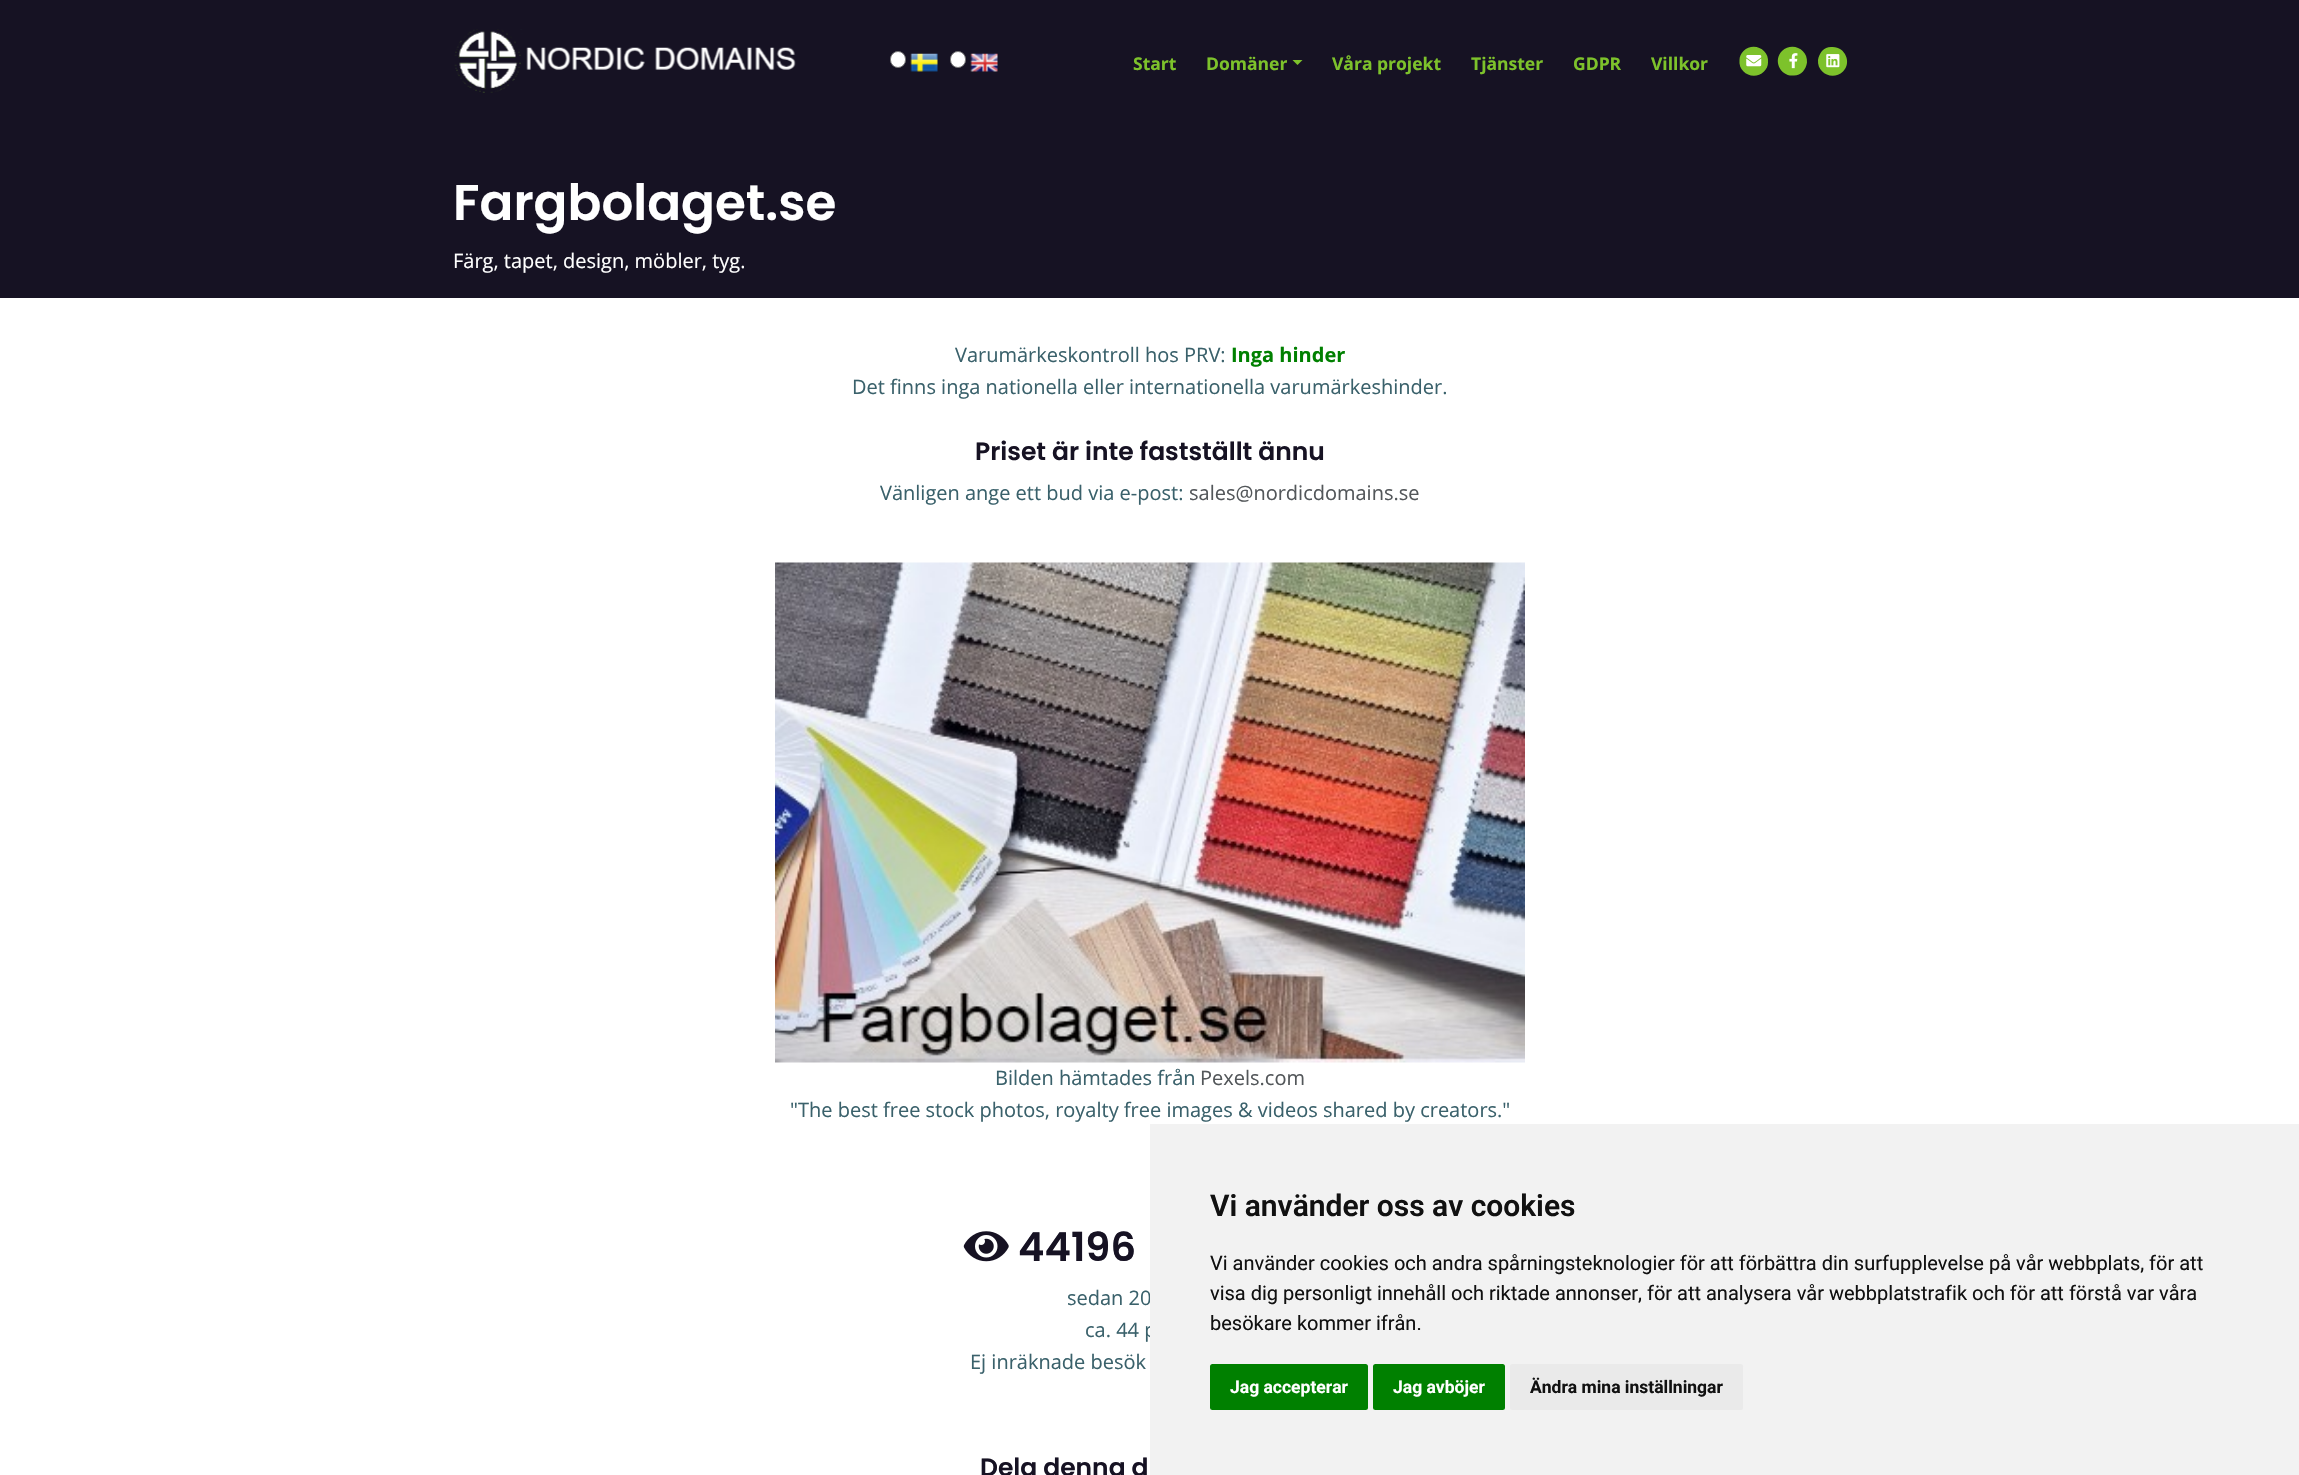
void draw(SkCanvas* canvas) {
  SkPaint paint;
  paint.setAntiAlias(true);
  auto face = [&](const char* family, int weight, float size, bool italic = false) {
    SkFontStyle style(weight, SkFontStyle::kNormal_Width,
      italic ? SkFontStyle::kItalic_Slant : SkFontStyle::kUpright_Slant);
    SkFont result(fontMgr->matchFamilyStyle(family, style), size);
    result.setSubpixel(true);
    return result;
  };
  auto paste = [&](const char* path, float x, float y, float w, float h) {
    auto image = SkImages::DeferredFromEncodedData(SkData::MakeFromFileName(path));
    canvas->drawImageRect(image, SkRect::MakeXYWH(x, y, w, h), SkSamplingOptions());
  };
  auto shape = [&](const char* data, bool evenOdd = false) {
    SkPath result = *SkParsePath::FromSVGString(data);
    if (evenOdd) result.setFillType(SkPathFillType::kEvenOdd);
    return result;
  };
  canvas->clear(0xffffffff);
  paint.setColor(0xff161223);
  canvas->drawRect(SkRect::MakeXYWH(0, 0, 2299, 298), paint);
  paste("img/1.png", 454, 29, 342, 64);
  paint.setColor(0xffffffff);
  canvas->drawRoundRect(SkRect::MakeXYWH(890.5f, 51.5f, 15, 16), 7.5f, 7.5f, paint);
  paint.setStroke(true);
  paint.setStrokeWidth(1);
  paint.setColor(0xff767676);
  canvas->drawRoundRect(SkRect::MakeXYWH(890.5f, 51.5f, 15, 16), 7.5f, 7.5f, paint);
  paste("img/2.png", 910, 53, 28, 19);
  paint.setStroke(false);
  paint.setColor(0xffffffff);
  canvas->drawRoundRect(SkRect::MakeXYWH(950.5f, 51.5f, 15, 16), 7.5f, 7.5f, paint);
  paint.setStroke(true);
  paint.setColor(0xff767676);
  canvas->drawRoundRect(SkRect::MakeXYWH(950.5f, 51.5f, 15, 16), 7.5f, 7.5f, paint);
  paste("img/3.png", 970, 53, 28, 19);
  paint.setStroke(false);
  paint.setColor(0xff7dc22b);
  canvas->drawPath(shape("M1292.5 60H1302.5L1297.5 65Z"), paint);
  canvas->drawPath(shape("M1743.5 51C1753 41.5 1769.5 49 1768 62.5C1768 66 1766.5 69 1764 71.5C1754.5 81 1738 73.5 1739.5 60C1739.5 56.5 1741 53.5 1743.5 51Z"), paint);
  paste("img/4.png", 1746, 55, 16, 12);
  canvas->drawPath(shape("M1782 51C1792 41.5 1808 49 1807 62.5C1806.5 66 1805 69 1803 71.5C1800.5 74 1797.5 75.5 1794 75.5C1780.5 77 1772.5 60.5 1782 51Z"), paint);
  paste("img/5.png", 1789, 53, 9, 16);
  canvas->drawPath(shape("M1822 51C1824.5 48.5 1827.5 47 1831 47C1844.5 45.5 1852.5 62 1843 71.5C1833 81 1817 73.5 1818 60C1818.5 56.5 1820 53.5 1822 51Z"), paint);
  paste("img/6.png", 1826, 54, 14, 14);
  paste("img/7.png", 775, 562, 750, 501);
  paste("img/8.png", 963, 1231, 46, 31);
  auto f0 = face("Open Sans", 700, 17.5f);
  {
    const struct { const char* s; float x, y; } items[] = {
      {"Start", 1133, 70},
      {"Domäner", 1206, 70},
      {"Våra projekt", 1332, 70},
      {"Tjänster", 1471, 70},
      {"GDPR", 1573, 70},
      {"Villkor", 1651, 70},
    };
    for (auto [s, x, y] : items) {
      canvas->drawString(s, x, y, f0, paint);
    }
  }
  auto f1 = face("Poppins", 600, 50);
  paint.setColor(0xffffffff);
  canvas->drawString("Fargbolaget.se", 453, 220, f1, paint);
  auto f2 = face("Open Sans", 400, 20);
  canvas->drawString("Färg, tapet, design, möbler, tyg.", 453, 268, f2, paint);
  paint.setColor(0xff3a616b);
  canvas->drawString("Varumärkeskontroll hos PRV:", 955, 362, f2, paint);
  auto f3 = face("Open Sans", 700, 20);
  paint.setColor(0xff008000);
  canvas->drawString("Inga hinder", 1231, 362, f3, paint);
  paint.setColor(0xff3a616b);
  canvas->drawString("Det finns inga nationella eller internationella varumärkeshinder.", 852, 394, f2, paint);
  auto f4 = face("Poppins", 600, 25);
  paint.setColor(0xff161223);
  canvas->drawString("Priset är inte fastställt ännu", 975, 460, f4, paint);
  paint.setColor(0xff3a616b);
  canvas->drawString("Vänligen ange ett bud via e-post:", 880, 500, f2, paint);
  paint.setColor(0xff53575a);
  canvas->drawString("sales@nordicdomains.se", 1189, 500, f2, paint);
  paint.setColor(0xff3a616b);
  canvas->drawString("Bilden hämtades från", 995, 1085, f2, paint);
  paint.setColor(0xff53575a);
  canvas->drawString("Pexels.com", 1200, 1085, f2, paint);
  paint.setColor(0xff3a616b);
  canvas->drawString("\"The best free stock photos, royalty free images & videos shared by creators.\"", 790, 1117, f2, paint);
  auto f5 = face("Poppins", 600, 40);
  paint.setColor(0xff161223);
  canvas->drawString("44196", 1018, 1261, f5, paint);
  paint.setColor(0xff3a616b);
  {
    const struct { const char* s; float x, y; } items[] = {
      {"sedan 20", 1067, 1305},
      {"ca. 44 p", 1085, 1337},
      {"Ej inräknade besök", 970, 1369},
    };
    for (auto [s, x, y] : items) {
      canvas->drawString(s, x, y, f2, paint);
    }
  }
  paint.setColor(0xff161223);
  canvas->drawString("Dela denna d", 980, 1476, f4, paint);
  paint.setColor(0xfff2f2f2);
  canvas->drawRect(SkRect::MakeXYWH(1150, 1124, 1149, 351), paint);
  auto f6 = face("Roboto", 600, 30);
  paint.setColor(0xff111111);
  canvas->drawString("Vi använder oss av cookies", 1210, 1216, f6, paint);
  auto f7 = face("Roboto", 400, 20);
  {
    const struct { const char* s; float x, y; } items[] = {
      {"Vi använder cookies och andra spårningsteknologier för att förbättra din surfupplevelse på vår webbplats, för att", 1210, 1270},
      {"visa dig personligt innehåll och riktade annonser, för att analysera vår webbplatstrafik och för att förstå var våra", 1210, 1300},
      {"besökare kommer ifrån.", 1210, 1330},
    };
    for (auto [s, x, y] : items) {
      canvas->drawString(s, x, y, f7, paint);
    }
  }
  paint.setColor(0xff008000);
  canvas->drawRoundRect(SkRect::MakeXYWH(1210, 1364, 158, 46), 2.5f, 2.5f, paint);
  auto f8 = face("Roboto", 700, 17.5f);
  paint.setColor(0xffffffff);
  canvas->drawString("Jag accepterar", 1230, 1393, f8, paint);
  paint.setColor(0xff008000);
  canvas->drawRoundRect(SkRect::MakeXYWH(1373, 1364, 132, 46), 2.5f, 2.5f, paint);
  paint.setColor(0xffffffff);
  canvas->drawString("Jag avböjer", 1393, 1393, f8, paint);
  paint.setColor(0xffeaeaea);
  canvas->drawRoundRect(SkRect::MakeXYWH(1510, 1364, 233, 46), 2.5f, 2.5f, paint);
  paint.setColor(0xff111111);
  canvas->drawString("Ändra mina inställningar", 1530, 1393, f8, paint);
}
